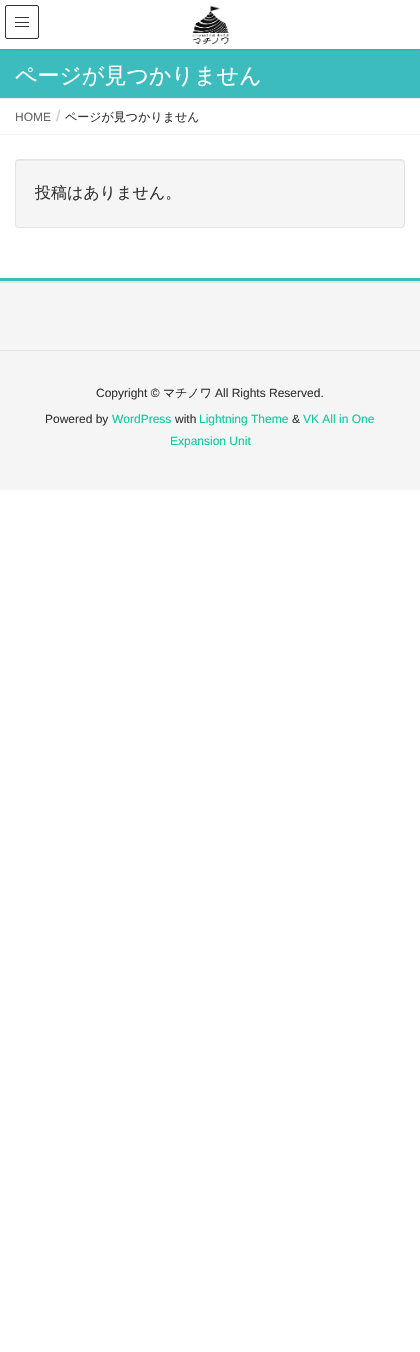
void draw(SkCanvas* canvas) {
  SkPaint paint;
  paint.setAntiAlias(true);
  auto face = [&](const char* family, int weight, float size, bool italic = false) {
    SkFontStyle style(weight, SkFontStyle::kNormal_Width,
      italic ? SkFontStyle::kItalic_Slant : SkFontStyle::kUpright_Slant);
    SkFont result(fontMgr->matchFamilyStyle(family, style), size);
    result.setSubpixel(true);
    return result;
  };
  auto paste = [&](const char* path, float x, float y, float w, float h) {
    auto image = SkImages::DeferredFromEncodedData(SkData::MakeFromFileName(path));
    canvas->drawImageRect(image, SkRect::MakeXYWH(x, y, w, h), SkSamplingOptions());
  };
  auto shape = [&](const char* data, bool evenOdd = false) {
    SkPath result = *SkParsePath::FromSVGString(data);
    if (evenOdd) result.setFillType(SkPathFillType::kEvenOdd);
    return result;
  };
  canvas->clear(0xffffffff);
  paint.setColor(0xff3cbcbc);
  canvas->drawRect(SkRect::MakeXYWH(0, 49, 420, 49), paint);
  canvas->save();
  canvas->clipRect(SkRect::MakeXYWH(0, 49, 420, 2));
  paint.setColor(0x1a000000);
  paint.setMaskFilter(SkMaskFilter::MakeBlur(kNormal_SkBlurStyle, 1.5f));
  canvas->drawRect(SkRect::MakeXYWH(0, 1, 420, 49), paint);
  paint.setMaskFilter(nullptr);
  canvas->restore();
  paste("img/1.png", 192, 5, 37, 39);
  {
    const struct { float x, y, w, h; SkColor color; } items[] = {
      {15, 17, 14, 1, 0xff333333},
      {15, 22, 14, 1, 0xff333333},
      {15, 26, 14, 1, 0xff333333},
    };
    for (auto [x, y, w, h, color] : items) {
      paint.setColor(color);
      canvas->drawRect(SkRect::MakeXYWH(x, y, w, h), paint);
    }
  }
  paint.setStroke(true);
  paint.setStrokeWidth(1);
  canvas->drawRoundRect(SkRect::MakeXYWH(5.5f, 5.5f, 33, 33), 1.5f, 1.5f, paint);
  paint.setStroke(false);
  paint.setColor(0xffeeeeee);
  canvas->drawRect(SkRect::MakeXYWH(0, 98, 420, 1), paint);
  paint.setColor(0xfff3f3f3);
  canvas->drawRect(SkRect::MakeXYWH(0, 134, 420, 1), paint);
  paint.setColor(0xfff5f5f5);
  canvas->drawRoundRect(SkRect::MakeXYWH(15, 159, 390, 69), 4, 4, paint);
  paint.setColor(0xffe9e9e9);
  canvas->drawPath(shape("M19 161H401C403 161 404 162 404 164C404 162 403 160 401 160H19L17 161L16 164C16 162 17 161 19 161Z"), paint);
  paint.setStroke(true);
  paint.setColor(0xffe3e3e3);
  canvas->drawRoundRect(SkRect::MakeXYWH(15.5f, 159.5f, 389, 68), 3.5f, 3.5f, paint);
  paint.setStroke(false);
  {
    const struct { float x, y, w, h; SkColor color; } items[] = {
      {0, 283, 420, 207, 0xfff5f5f5},
      {0, 278, 420, 3, 0xff3cbcbc},
      {0, 281, 420, 2, 0xffe5e5e5},
      {0, 350, 420, 1, 0xffe5e5e5},
    };
    for (auto [x, y, w, h, color] : items) {
      paint.setColor(color);
      canvas->drawRect(SkRect::MakeXYWH(x, y, w, h), paint);
    }
  }
  auto f0 = face("WenQuanYi Zen Hei", 500, 22);
  paint.setColor(0xffffffff);
  canvas->drawString("ページが見つかりません", 15, 83, f0, paint);
  auto f1 = face("Liberation Sans", 400, 12);
  paint.setColor(0xff666666);
  canvas->drawString("HOME", 15, 121, f1, paint);
  auto f2 = face("Liberation Sans", 400, 16);
  paint.setColor(0xffcccccc);
  canvas->drawString("/", 56, 121, f2, paint);
  auto f3 = face("WenQuanYi Zen Hei", 500, 12);
  paint.setColor(0xff333333);
  canvas->drawString("ページが見つかりません", 65, 121, f3, paint);
  auto f4 = face("WenQuanYi Zen Hei", 500, 16);
  canvas->drawString("投稿はありません。", 35, 198, f4, paint);
  canvas->drawString("Copyright ©", 96, 397, f1, paint);
  canvas->drawString("マチノワ", 163, 397, f3, paint);
  canvas->drawString("All Rights Reserved.", 215, 397, f1, paint);
  canvas->drawString("Powered by", 45, 423, f1, paint);
  paint.setColor(0xff0acc9e);
  canvas->drawString("WordPress", 112, 423, f1, paint);
  paint.setColor(0xff333333);
  canvas->drawString("with", 175, 423, f1, paint);
  paint.setColor(0xff0acc9e);
  canvas->drawString("Lightning Theme", 199, 423, f1, paint);
  paint.setColor(0xff333333);
  canvas->drawString("&", 292, 423, f1, paint);
  paint.setColor(0xff0acc9e);
  canvas->drawString("VK All in One", 303, 423, f1, paint);
  canvas->drawString("Expansion Unit", 170, 445, f1, paint);
}
